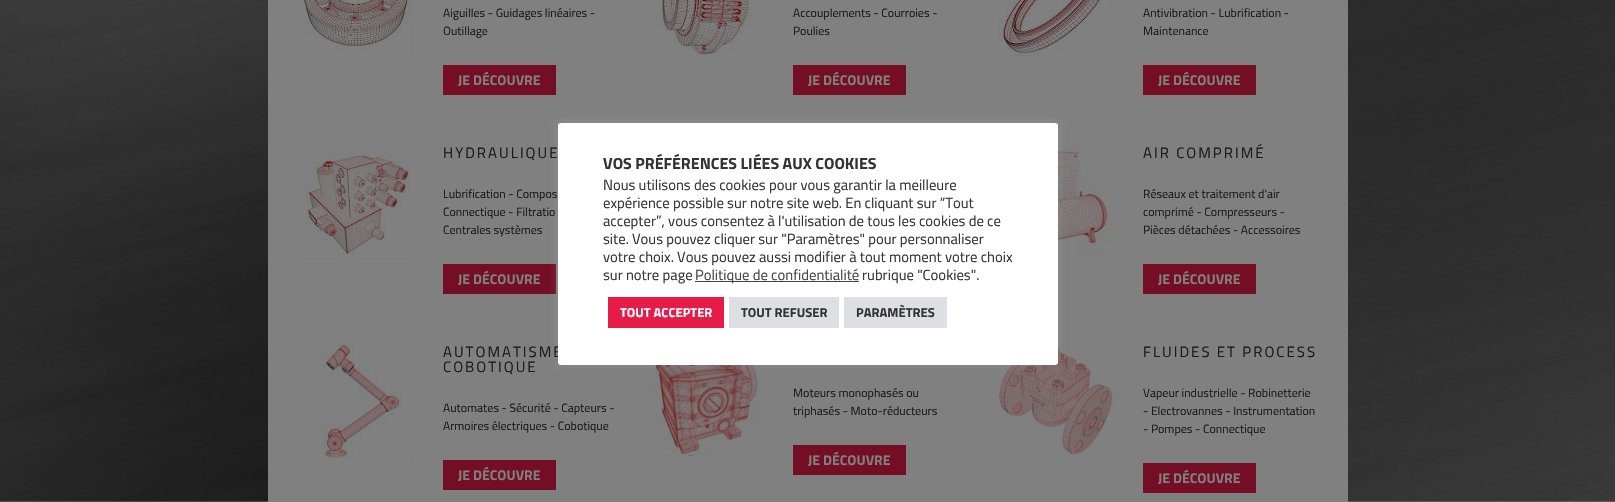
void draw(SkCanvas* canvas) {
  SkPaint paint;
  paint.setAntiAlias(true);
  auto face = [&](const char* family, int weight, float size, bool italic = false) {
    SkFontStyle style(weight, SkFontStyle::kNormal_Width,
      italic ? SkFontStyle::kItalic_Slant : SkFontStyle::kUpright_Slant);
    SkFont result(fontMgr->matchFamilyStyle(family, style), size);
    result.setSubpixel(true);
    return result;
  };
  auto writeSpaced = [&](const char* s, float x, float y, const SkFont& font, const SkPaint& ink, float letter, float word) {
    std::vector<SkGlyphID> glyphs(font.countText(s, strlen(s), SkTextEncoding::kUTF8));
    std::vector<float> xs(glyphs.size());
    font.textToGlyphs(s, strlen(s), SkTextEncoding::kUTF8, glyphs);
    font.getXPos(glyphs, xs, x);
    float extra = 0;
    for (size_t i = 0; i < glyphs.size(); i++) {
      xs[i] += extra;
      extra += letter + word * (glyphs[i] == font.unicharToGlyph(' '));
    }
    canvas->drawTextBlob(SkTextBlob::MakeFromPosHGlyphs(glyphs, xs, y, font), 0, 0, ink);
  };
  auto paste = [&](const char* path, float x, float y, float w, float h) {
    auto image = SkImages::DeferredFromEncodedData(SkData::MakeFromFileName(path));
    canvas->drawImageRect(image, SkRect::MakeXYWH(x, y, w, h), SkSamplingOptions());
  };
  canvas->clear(0xffffffff);
  paste("img/1.png", 0, 0, 1615, 502);
  paint.setColor(0xff808080);
  canvas->drawRect(SkRect::MakeXYWH(268, 0, 1080, 502), paint);
  paste("img/2.png", 298, 0, 115, 61);
  paint.setColor(0xff740e24);
  canvas->drawRect(SkRect::MakeXYWH(443, 65, 113, 30), paint);
  paste("img/3.png", 656, 0, 107, 61);
  canvas->drawRect(SkRect::MakeXYWH(793, 65, 113, 30), paint);
  paste("img/4.png", 998, 0, 115, 61);
  canvas->drawRect(SkRect::MakeXYWH(1143, 65, 113, 30), paint);
  paste("img/5.png", 306, 153, 107, 107);
  canvas->drawRect(SkRect::MakeXYWH(443, 264, 113, 30), paint);
  paste("img/6.png", 1058, 145, 52, 113);
  canvas->drawRect(SkRect::MakeXYWH(1143, 264, 113, 30), paint);
  paste("img/7.png", 322, 344, 91, 115);
  canvas->drawRect(SkRect::MakeXYWH(443, 460, 113, 30), paint);
  paste("img/8.png", 648, 365, 112, 91);
  canvas->drawRect(SkRect::MakeXYWH(793, 445, 113, 30), paint);
  paste("img/9.png", 999, 347, 114, 108);
  canvas->drawRect(SkRect::MakeXYWH(1143, 463, 113, 30), paint);
  paint.setColor(0x4dacabab);
  paint.setMaskFilter(SkMaskFilter::MakeBlur(kNormal_SkBlurStyle, 5));
  canvas->drawRoundRect(SkRect::MakeXYWH(558, 122, 500, 242), 3, 3, paint);
  paint.setMaskFilter(nullptr);
  auto f0 = face("Titillium Web", 400, 12);
  paint.setColor(0xff1a1a1a);
  canvas->drawString("Aiguilles - Guidages linéaires -", 443, 17, f0, paint);
  canvas->drawString("Outillage", 443, 35, f0, paint);
  auto f1 = face("Titillium Web", 700, 14);
  paint.setColor(0xff808080);
  canvas->drawString("JE DÉCOUVRE", 458, 85, f1, paint);
  paint.setColor(0xff1a1a1a);
  canvas->drawString("Accouplements - Courroies -", 793, 17, f0, paint);
  canvas->drawString("Poulies", 793, 35, f0, paint);
  paint.setColor(0xff808080);
  canvas->drawString("JE DÉCOUVRE", 808, 85, f1, paint);
  paint.setColor(0xff1a1a1a);
  canvas->drawString("Antivibration - Lubrification -", 1143, 17, f0, paint);
  canvas->drawString("Maintenance", 1143, 35, f0, paint);
  paint.setColor(0xff808080);
  canvas->drawString("JE DÉCOUVRE", 1158, 85, f1, paint);
  auto f2 = face("Titillium Web", 400, 15);
  paint.setColor(0xff1a1a1a);
  writeSpaced("HYDRAULIQUE", 443, 158, f2, paint, 2, 0);
  {
    const struct { const char* s; float x, y; } items[] = {
      {"Lubrification - Compos", 443, 198},
      {"Connectique - Filtratio", 443, 216},
      {"Centrales systèmes", 443, 234},
    };
    for (auto [s, x, y] : items) {
      canvas->drawString(s, x, y, f0, paint);
    }
  }
  paint.setColor(0xff808080);
  canvas->drawString("JE DÉCOUVRE", 458, 284, f1, paint);
  paint.setColor(0xff1a1a1a);
  writeSpaced("AIR COMPRIMÉ", 1143, 158, f2, paint, 2, 0);
  {
    const struct { const char* s; float x, y; } items[] = {
      {"Réseaux et traitement d'air", 1143, 198},
      {"comprimé - Compresseurs -", 1143, 216},
      {"Pièces détachées - Accessoires", 1143, 234},
    };
    for (auto [s, x, y] : items) {
      canvas->drawString(s, x, y, f0, paint);
    }
  }
  paint.setColor(0xff808080);
  canvas->drawString("JE DÉCOUVRE", 1158, 284, f1, paint);
  paint.setColor(0xff1a1a1a);
  writeSpaced("AUTOMATISME", 443, 357, f2, paint, 2, 0);
  writeSpaced("COBOTIQUE", 443, 372, f2, paint, 2, 0);
  canvas->drawString("Automates - Sécurité - Capteurs -", 443, 412, f0, paint);
  canvas->drawString("Armoires électriques - Cobotique", 443, 430, f0, paint);
  paint.setColor(0xff808080);
  canvas->drawString("JE DÉCOUVRE", 458, 480, f1, paint);
  paint.setColor(0xff1a1a1a);
  canvas->drawString("Moteurs monophasés ou", 793, 397, f0, paint);
  canvas->drawString("triphasés - Moto-réducteurs", 793, 415, f0, paint);
  paint.setColor(0xff808080);
  canvas->drawString("JE DÉCOUVRE", 808, 465, f1, paint);
  paint.setColor(0xff1a1a1a);
  writeSpaced("FLUIDES ET PROCESS", 1143, 357, f2, paint, 2, 0);
  {
    const struct { const char* s; float x, y; } items[] = {
      {"Vapeur industrielle - Robinetterie", 1143, 397},
      {"- Electrovannes - Instrumentation", 1143, 415},
      {"- Pompes - Connectique", 1143, 433},
    };
    for (auto [s, x, y] : items) {
      canvas->drawString(s, x, y, f0, paint);
    }
  }
  paint.setColor(0xff808080);
  canvas->drawString("JE DÉCOUVRE", 1158, 483, f1, paint);
  paint.setColor(0xffffffff);
  canvas->drawRoundRect(SkRect::MakeXYWH(558, 123, 500, 242), 3, 3, paint);
  auto f3 = face("Titillium Web", 700, 16);
  paint.setColor(0xff333333);
  canvas->drawString("VOS PRÉFÉRENCES LIÉES AUX COOKIES", 603, 169, f3, paint);
  auto f4 = face("Titillium Web", 400, 14.7f);
  {
    const struct { const char* s; float x, y; } items[] = {
      {"Nous utilisons des cookies pour vous garantir la meilleure", 603, 190},
      {"expérience possible sur notre site web. En cliquant sur “Tout", 603, 208},
      {"accepter”, vous consentez à l'utilisation de tous les cookies de ce", 603, 226},
      {"site. Vous pouvez cliquer sur \"Paramètres\" pour personnaliser", 603, 244},
      {"votre choix. Vous pouvez aussi modifier à tout moment votre choix", 603, 262},
      {"sur notre page", 603, 280},
    };
    for (auto [s, x, y] : items) {
      canvas->drawString(s, x, y, f4, paint);
    }
  }
  paint.setColor(0xff444444);
  canvas->drawRect(SkRect::MakeXYWH(695, 281, 164, 1), paint);
  canvas->drawString("Politique de confidentialité", 695, 280, f4, paint);
  paint.setColor(0xff333333);
  canvas->drawString("rubrique \"Cookies\".", 862, 280, f4, paint);
  paint.setColor(0xffe71b48);
  canvas->drawRect(SkRect::MakeXYWH(608, 297, 116, 31), paint);
  auto f5 = face("Titillium Web", 700, 13);
  paint.setColor(0xffffffff);
  canvas->drawString("TOUT ACCEPTER", 620, 317, f5, paint);
  paint.setColor(0xffdedfe0);
  canvas->drawRect(SkRect::MakeXYWH(729, 297, 110, 31), paint);
  paint.setColor(0xff333333);
  canvas->drawString("TOUT REFUSER", 741, 317, f5, paint);
  paint.setColor(0xffdedfe0);
  canvas->drawRect(SkRect::MakeXYWH(844, 297, 103, 31), paint);
  paint.setColor(0xff333333);
  canvas->drawString("PARAMÈTRES", 856, 317, f5, paint);
}
